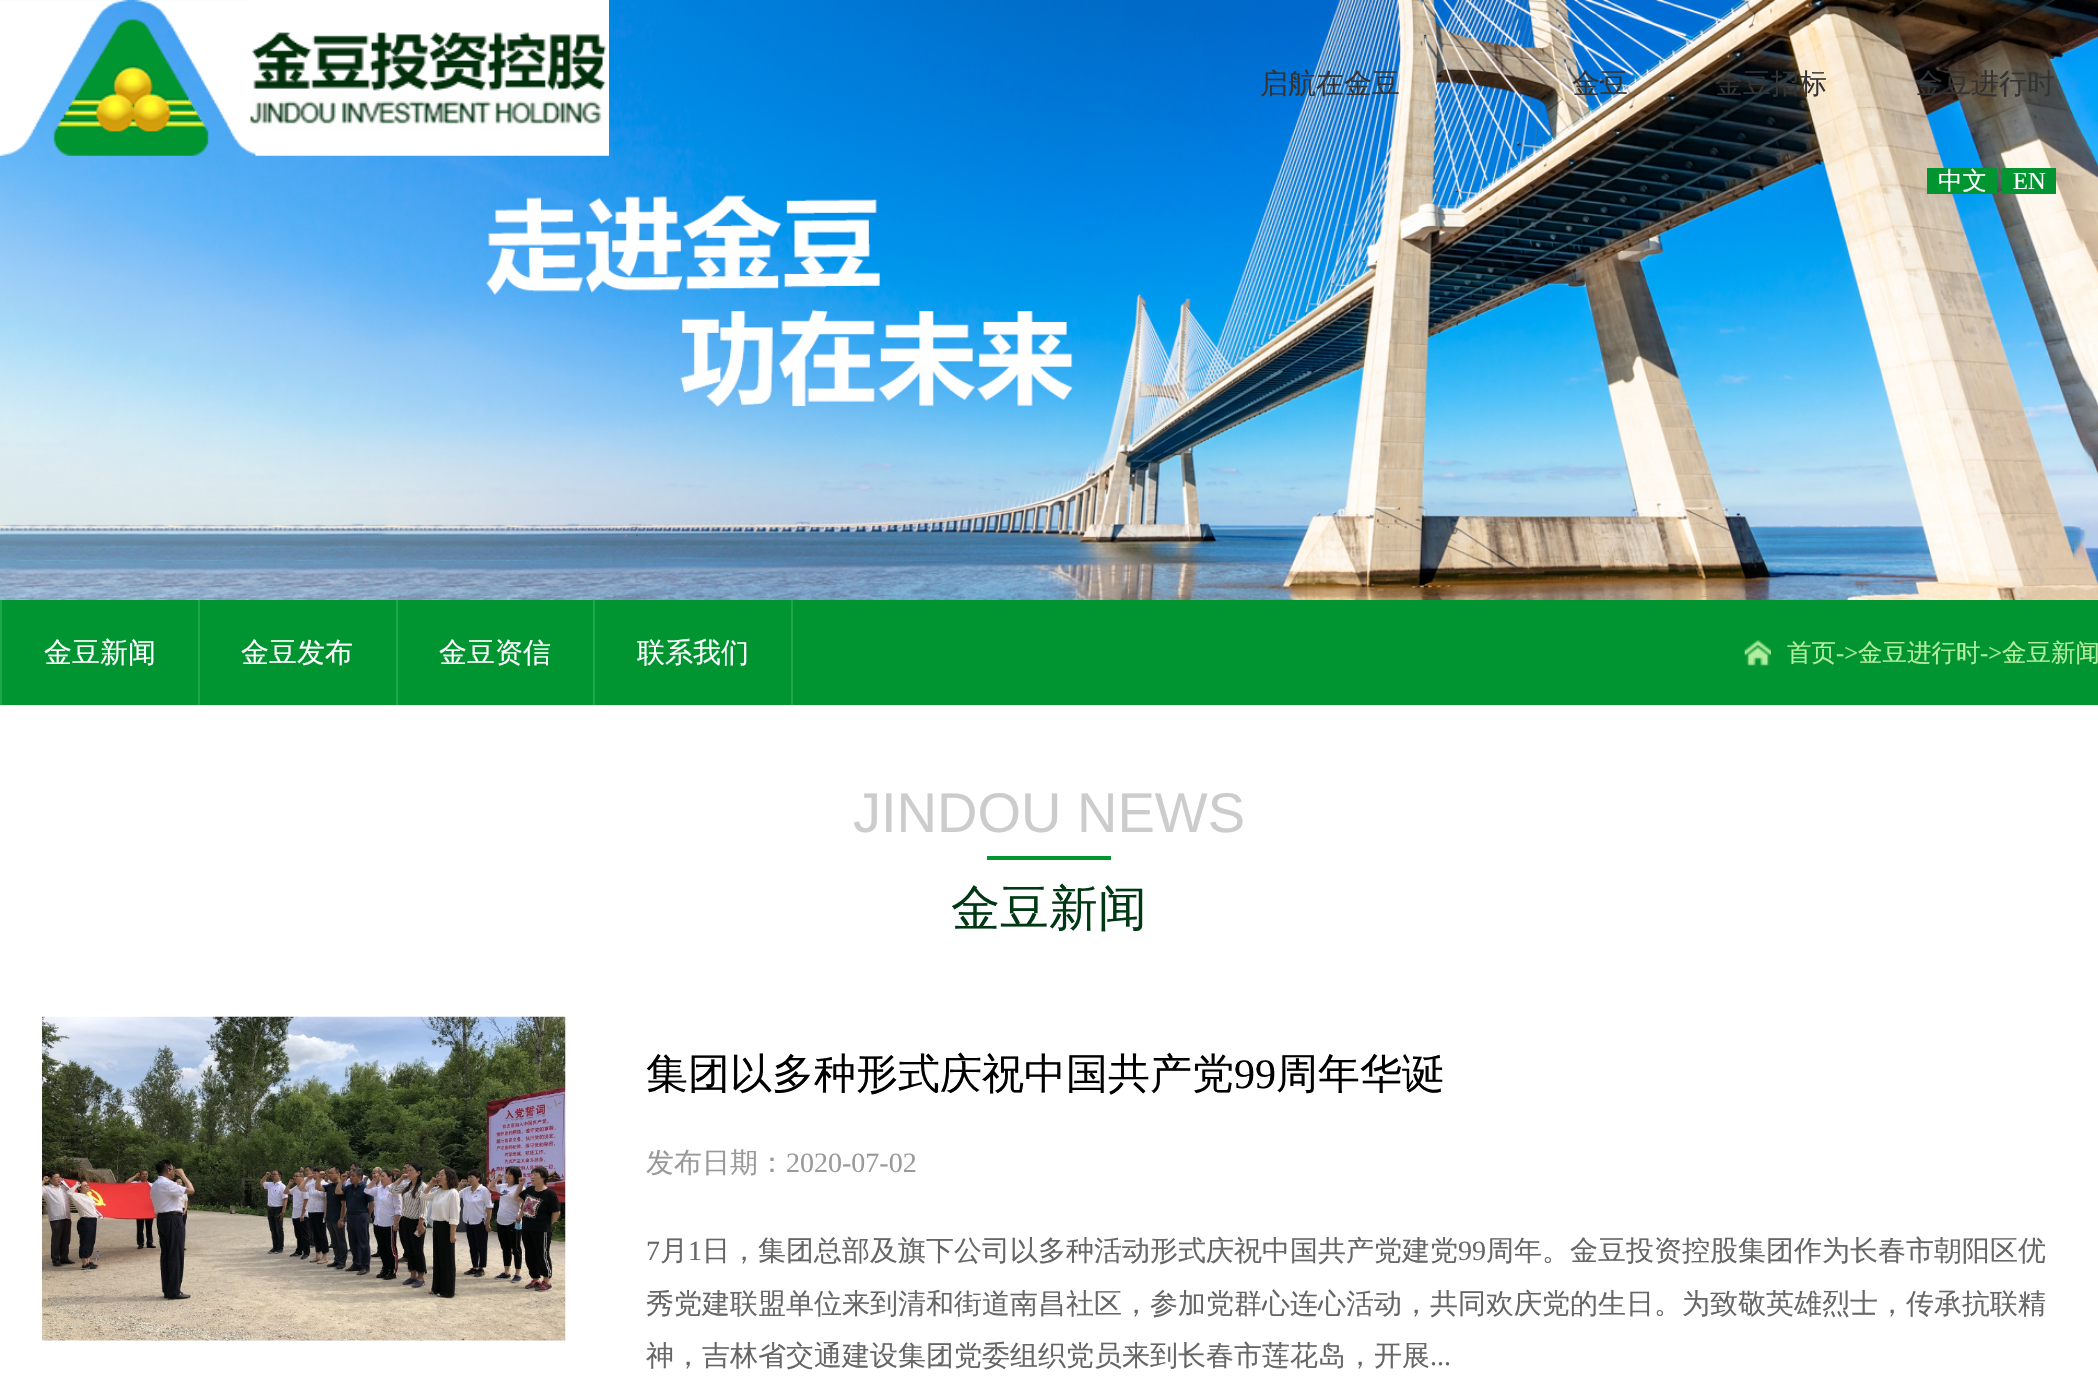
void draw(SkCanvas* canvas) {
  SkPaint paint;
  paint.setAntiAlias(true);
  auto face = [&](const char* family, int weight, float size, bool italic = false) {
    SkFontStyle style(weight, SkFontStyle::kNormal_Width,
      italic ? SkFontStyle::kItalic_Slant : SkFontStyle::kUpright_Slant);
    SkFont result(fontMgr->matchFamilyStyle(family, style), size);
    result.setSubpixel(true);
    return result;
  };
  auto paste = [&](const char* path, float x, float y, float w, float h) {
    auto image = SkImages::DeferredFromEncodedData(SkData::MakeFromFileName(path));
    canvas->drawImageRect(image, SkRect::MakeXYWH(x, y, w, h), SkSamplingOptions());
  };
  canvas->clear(0xffffffff);
  paste("img/1.png", 0, 0, 2098, 600);
  paste("img/2.png", 0, 0, 609, 156);
  {
    const struct { float x, y, w, h; SkColor color; } items[] = {
      {1927, 168, 70, 26, 0xff019532},
      {2002, 168, 54, 26, 0xff019532},
      {2, 600, 2096, 105, 0xff019532},
      {0, 600, 2, 105, 0xff1da64b},
      {198, 600, 2, 105, 0xff1da64b},
      {396, 600, 2, 105, 0xff1da64b},
      {593, 600, 2, 105, 0xff1da64b},
      {791, 600, 2, 105, 0xff1da64b},
    };
    for (auto [x, y, w, h, color] : items) {
      paint.setColor(color);
      canvas->drawRect(SkRect::MakeXYWH(x, y, w, h), paint);
    }
  }
  paste("img/3.png", 1744, 640, 27, 26);
  paint.setColor(0xff019532);
  canvas->drawRect(SkRect::MakeXYWH(987, 856, 124, 4), paint);
  paste("img/4.png", 42, 1016, 524, 325);
  auto f0 = face("WenQuanYi Zen Hei", 500, 28);
  paint.setColor(0xff333333);
  {
    const struct { const char* s; float x, y; } items[] = {
      {"启航在金豆", 1260, 93},
      {"金豆", 1572, 93},
      {"金豆招标", 1715, 93},
      {"金豆进行时", 1915, 93},
    };
    for (auto [s, x, y] : items) {
      canvas->drawString(s, x, y, f0, paint);
    }
  }
  auto f1 = face("WenQuanYi Zen Hei", 500, 24.5f);
  paint.setColor(0xffffffff);
  canvas->drawString("中文", 1938, 189, f1, paint);
  auto f2 = face("Liberation Serif", 400, 24.5f);
  canvas->drawString("EN", 2013, 189, f2, paint);
  {
    const struct { const char* s; float x, y; } items[] = {
      {"金豆新闻", 44, 662},
      {"金豆发布", 241, 662},
      {"金豆资信", 439, 662},
      {"联系我们", 637, 662},
    };
    for (auto [s, x, y] : items) {
      canvas->drawString(s, x, y, f0, paint);
    }
  }
  paint.setColor(0xffb2ee9d);
  canvas->drawString("首页", 1787, 661, f1, paint);
  canvas->drawString("->", 1836, 661, f2, paint);
  canvas->drawString("金豆进行时", 1858, 661, f1, paint);
  canvas->drawString("->", 1980, 661, f2, paint);
  canvas->drawString("金豆新闻", 2002, 661, f1, paint);
  auto f3 = face("Liberation Sans", 400, 56);
  paint.setColor(0xffcccccc);
  canvas->drawString("JINDOU NEWS", 853, 832, f3, paint);
  auto f4 = face("WenQuanYi Zen Hei", 500, 49);
  paint.setColor(0xff003813);
  canvas->drawString("金豆新闻", 951, 925, f4, paint);
  auto f5 = face("WenQuanYi Zen Hei", 500, 42);
  paint.setColor(0xff000000);
  canvas->drawString("集团以多种形式庆祝中国共产党", 646, 1088, f5, paint);
  auto f6 = face("Liberation Serif", 400, 42);
  canvas->drawString("99", 1234, 1088, f6, paint);
  canvas->drawString("周年华诞", 1276, 1088, f5, paint);
  paint.setColor(0xff999999);
  canvas->drawString("发布日期：", 646, 1172, f0, paint);
  auto f7 = face("Liberation Serif", 400, 28);
  canvas->drawString("2020-07-02", 786, 1172, f7, paint);
  paint.setColor(0xff666666);
  canvas->drawString("7", 646, 1260, f7, paint);
  canvas->drawString("月", 660, 1260, f0, paint);
  canvas->drawString("1", 688, 1260, f7, paint);
  canvas->drawString("日，集团总部及旗下公司以多种活动形式庆祝中国共产党建党", 702, 1260, f0, paint);
  canvas->drawString("99", 1458, 1260, f7, paint);
  {
    const struct { const char* s; float x, y; } items[] = {
      {"周年。金豆投资控股集团作为长春市朝阳区优", 1486, 1260},
      {"秀党建联盟单位来到清和街道南昌社区，参加党群心连心活动，共同欢庆党的生日。为致敬英雄烈士，传承抗联精", 646, 1313},
      {"神，吉林省交通建设集团党委组织党员来到长春市莲花岛，开展", 646, 1365},
    };
    for (auto [s, x, y] : items) {
      canvas->drawString(s, x, y, f0, paint);
    }
  }
  canvas->drawString("...", 1430, 1365, f7, paint);
}
